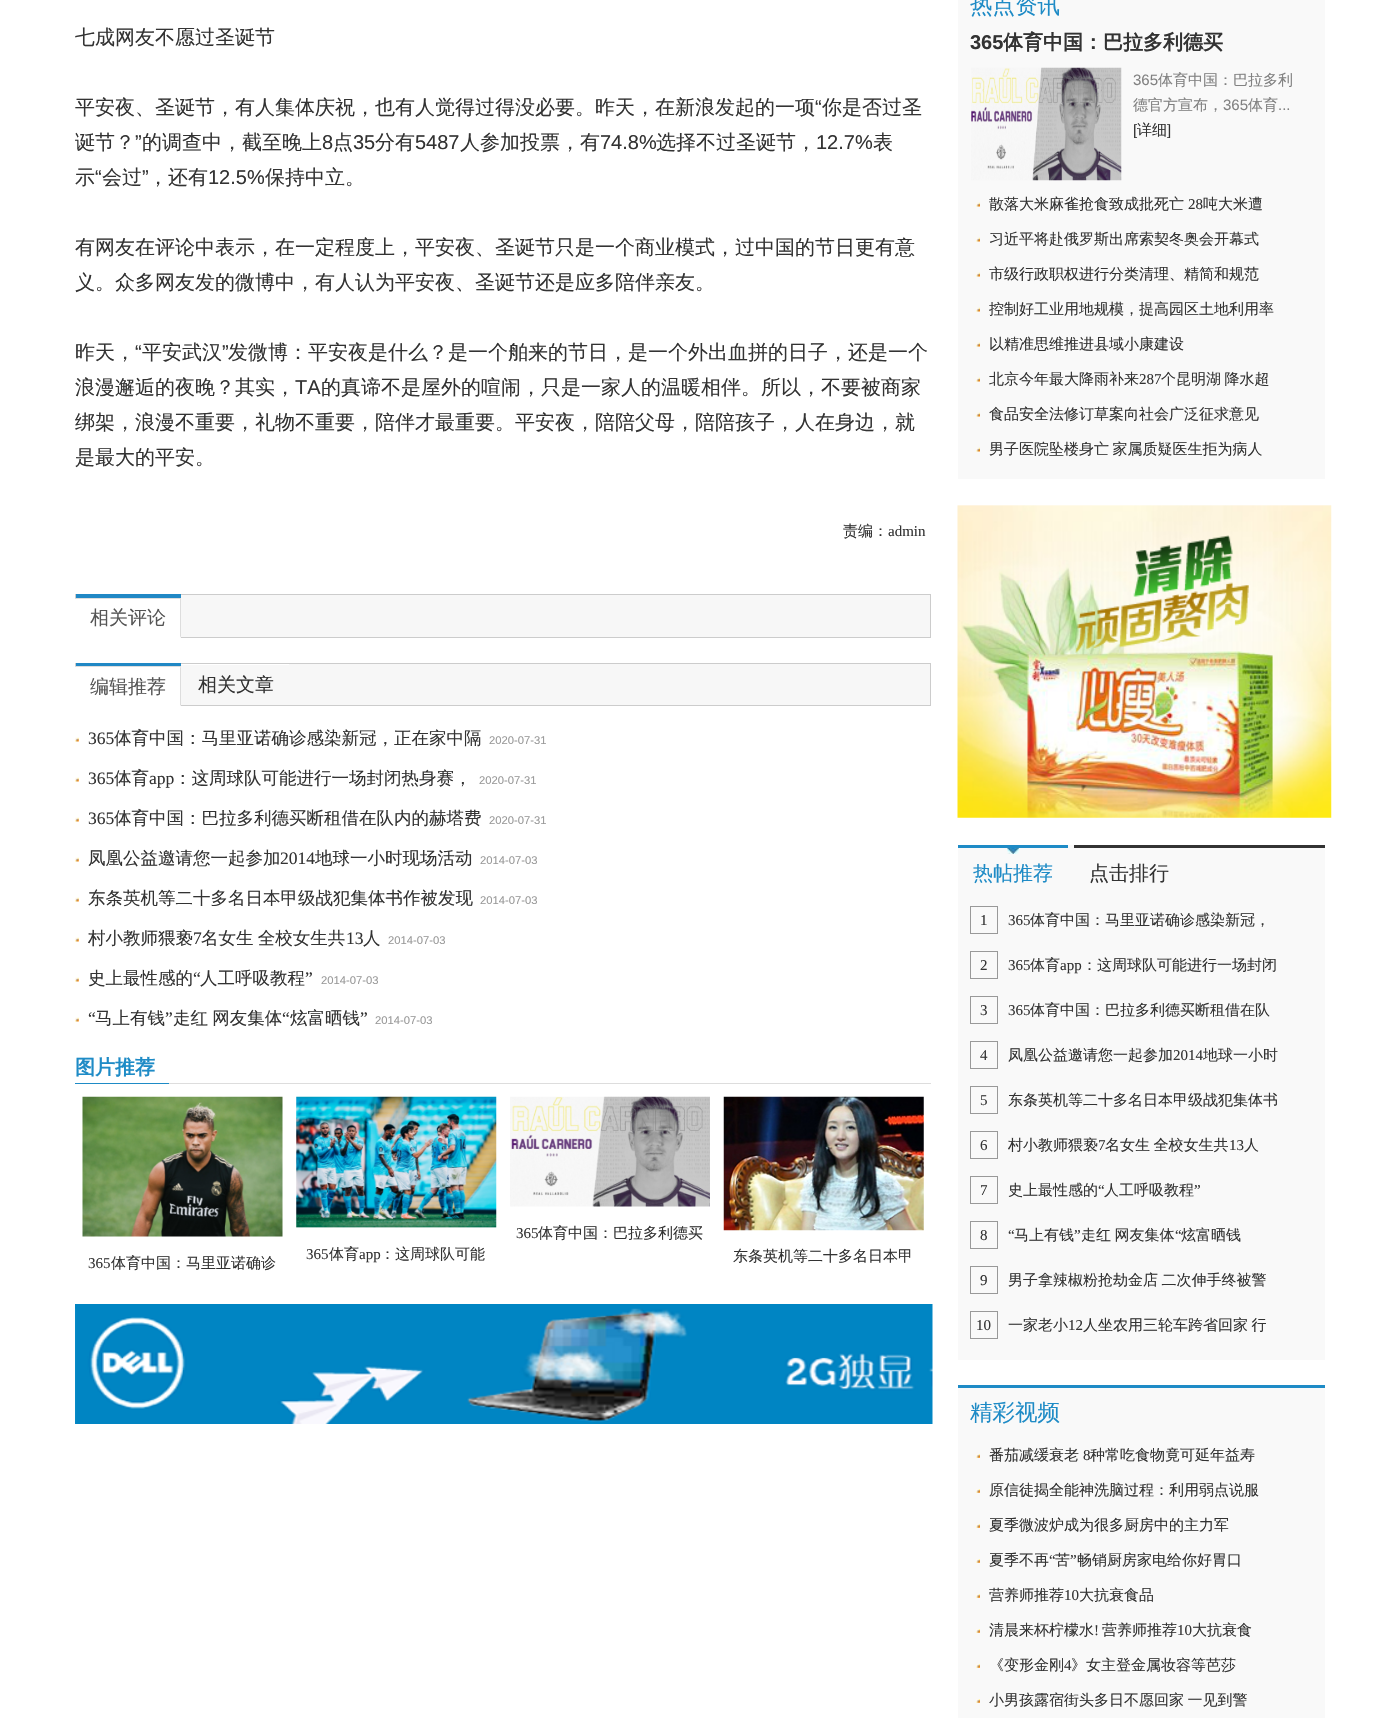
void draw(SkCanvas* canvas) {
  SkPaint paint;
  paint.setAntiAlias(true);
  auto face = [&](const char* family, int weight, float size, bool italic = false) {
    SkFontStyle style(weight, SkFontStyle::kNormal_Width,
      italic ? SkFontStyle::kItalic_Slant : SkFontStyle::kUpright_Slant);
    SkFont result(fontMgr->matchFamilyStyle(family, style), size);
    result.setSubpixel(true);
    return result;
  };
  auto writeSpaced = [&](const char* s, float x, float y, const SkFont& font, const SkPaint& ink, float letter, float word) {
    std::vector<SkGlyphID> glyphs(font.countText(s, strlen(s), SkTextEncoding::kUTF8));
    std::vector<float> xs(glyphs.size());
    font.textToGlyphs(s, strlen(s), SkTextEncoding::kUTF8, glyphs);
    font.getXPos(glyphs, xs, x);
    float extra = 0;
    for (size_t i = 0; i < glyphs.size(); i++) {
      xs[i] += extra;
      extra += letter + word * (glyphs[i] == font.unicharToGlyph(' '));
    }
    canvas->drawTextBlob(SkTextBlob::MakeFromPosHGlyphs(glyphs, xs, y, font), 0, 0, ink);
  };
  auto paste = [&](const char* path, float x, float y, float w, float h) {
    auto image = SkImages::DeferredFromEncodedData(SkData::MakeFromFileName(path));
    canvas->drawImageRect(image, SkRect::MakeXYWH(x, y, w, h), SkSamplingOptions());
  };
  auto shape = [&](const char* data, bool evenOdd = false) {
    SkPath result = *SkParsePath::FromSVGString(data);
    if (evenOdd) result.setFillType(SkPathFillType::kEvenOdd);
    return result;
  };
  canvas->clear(0xffffffff);
  paint.setColor(0xfff7f7f7);
  canvas->drawRect(SkRect::MakeXYWH(181, 595, 749, 42), paint);
  paint.setStroke(true);
  paint.setStrokeWidth(1);
  paint.setColor(0xffcccccc);
  canvas->drawRect(SkRect::MakeXYWH(75.5f, 594.5f, 855, 43), paint);
  paint.setStroke(false);
  {
    const struct { float x, y, w, h; SkColor color; } items[] = {
      {76, 594, 105, 4, 0xff2088c5},
      {75, 599, 106, 39, 0xffffffff},
      {75, 598, 106, 1, 0xffdddddd},
    };
    for (auto [x, y, w, h, color] : items) {
      paint.setColor(color);
      canvas->drawRect(SkRect::MakeXYWH(x, y, w, h), paint);
    }
  }
  canvas->drawPath(shape("M181 598V638L180 636V599Z"), paint);
  paint.setColor(0xfff7f7f7);
  canvas->drawRect(SkRect::MakeXYWH(181, 664, 749, 41), paint);
  paint.setStroke(true);
  paint.setColor(0xffcccccc);
  canvas->drawRect(SkRect::MakeXYWH(75.5f, 663.5f, 855, 42), paint);
  paint.setStroke(false);
  {
    const struct { float x, y, w, h; SkColor color; } items[] = {
      {76, 663, 105, 3, 0xff2088c5},
      {75, 667, 106, 39, 0xffffffff},
      {75, 666, 106, 1, 0xffdddddd},
    };
    for (auto [x, y, w, h, color] : items) {
      paint.setColor(color);
      canvas->drawRect(SkRect::MakeXYWH(x, y, w, h), paint);
    }
  }
  canvas->drawPath(shape("M181 666V706L180 705V668Z"), paint);
  paint.setColor(0xffffffff);
  canvas->drawRect(SkRect::MakeXYWH(181, 664, 108, 1), paint);
  paste("img/1.png", 75, 737, 4, 5);
  paste("img/1.png", 75, 777, 4, 5);
  paste("img/1.png", 75, 817, 4, 5);
  paste("img/1.png", 75, 857, 4, 5);
  paste("img/1.png", 75, 897, 4, 5);
  paste("img/1.png", 75, 937, 4, 5);
  paste("img/1.png", 75, 977, 4, 5);
  paste("img/1.png", 75, 1017, 4, 5);
  paint.setColor(0xff1e8bc6);
  canvas->drawRect(SkRect::MakeXYWH(75, 1083, 94, 1), paint);
  paint.setColor(0xffdddddd);
  canvas->drawRect(SkRect::MakeXYWH(169, 1083, 762, 1), paint);
  paste("img/2.png", 510, 1096, 200, 111);
  paste("img/3.png", 82, 1096, 201, 141);
  paste("img/4.png", 296, 1096, 201, 132);
  paste("img/5.png", 723, 1096, 201, 135);
  paste("img/6.png", 75, 1304, 858, 120);
  paint.setColor(0xfff9f9f9);
  canvas->drawRect(SkRect::MakeXYWH(958, 0, 367, 479), paint);
  paste("img/7.png", 971, 67, 151, 114);
  paste("img/8.png", 976, 202, 4, 5);
  paste("img/8.png", 976, 237, 4, 5);
  paste("img/8.png", 976, 272, 4, 5);
  paste("img/8.png", 976, 307, 4, 5);
  paste("img/8.png", 976, 342, 4, 5);
  paste("img/8.png", 976, 377, 4, 5);
  paste("img/8.png", 976, 412, 4, 5);
  paste("img/8.png", 976, 447, 4, 5);
  paste("img/9.png", 957, 505, 375, 313);
  {
    const struct { float x, y, w, h; SkColor color; } items[] = {
      {958, 848, 367, 512, 0xfff9f9f9},
      {1074, 845, 251, 3, 0xff333333},
      {1068, 845, 6, 3, 0xfff9f9f9},
    };
    for (auto [x, y, w, h, color] : items) {
      paint.setColor(color);
      canvas->drawRect(SkRect::MakeXYWH(x, y, w, h), paint);
    }
  }
  paste("img/10.png", 1007, 848, 12, 6);
  paint.setColor(0xff1e8bc6);
  canvas->drawRect(SkRect::MakeXYWH(958, 845, 110, 3), paint);
  paint.setStroke(true);
  paint.setColor(0xff999999);
  canvas->drawRect(SkRect::MakeXYWH(970.5f, 906.5f, 27, 27), paint);
  canvas->drawRect(SkRect::MakeXYWH(970.5f, 951.5f, 27, 27), paint);
  canvas->drawRect(SkRect::MakeXYWH(970.5f, 996.5f, 27, 27), paint);
  canvas->drawRect(SkRect::MakeXYWH(970.5f, 1041.5f, 27, 27), paint);
  canvas->drawRect(SkRect::MakeXYWH(970.5f, 1086.5f, 27, 27), paint);
  canvas->drawRect(SkRect::MakeXYWH(970.5f, 1131.5f, 27, 27), paint);
  canvas->drawRect(SkRect::MakeXYWH(970.5f, 1176.5f, 27, 27), paint);
  canvas->drawRect(SkRect::MakeXYWH(970.5f, 1221.5f, 27, 27), paint);
  canvas->drawRect(SkRect::MakeXYWH(970.5f, 1266.5f, 27, 27), paint);
  canvas->drawRect(SkRect::MakeXYWH(970.5f, 1311.5f, 27, 27), paint);
  paint.setStroke(false);
  paint.setColor(0xfff9f9f9);
  canvas->drawRect(SkRect::MakeXYWH(958, 1388, 367, 330), paint);
  paint.setColor(0xff1e8bc6);
  canvas->drawRect(SkRect::MakeXYWH(958, 1385, 367, 3), paint);
  paste("img/11.png", 976, 1454, 4, 4);
  paste("img/11.png", 976, 1489, 4, 4);
  paste("img/11.png", 976, 1524, 4, 4);
  paste("img/11.png", 976, 1559, 4, 4);
  paste("img/11.png", 976, 1594, 4, 4);
  paste("img/11.png", 976, 1629, 4, 4);
  paste("img/11.png", 976, 1664, 4, 4);
  paste("img/11.png", 976, 1699, 4, 4);
  auto f0 = face("WenQuanYi Zen Hei", 500, 20);
  paint.setColor(0xff333333);
  canvas->drawString("七成网友不愿过圣诞节", 75, 44, f0, paint);
  canvas->drawString("平安夜、圣诞节，有人集体庆祝，也有人觉得过得没必要。昨天，在新浪发起的一项", 75, 114, f0, paint);
  auto f1 = face("Liberation Sans", 400, 20);
  canvas->drawString("“", 815, 114, f1, paint);
  canvas->drawString("你是否过圣", 822, 114, f0, paint);
  canvas->drawString("诞节？", 75, 149, f0, paint);
  canvas->drawString("”", 135, 149, f1, paint);
  canvas->drawString("的调查中，截至晚上", 142, 149, f0, paint);
  canvas->drawString("8", 322, 149, f1, paint);
  canvas->drawString("点", 333, 149, f0, paint);
  canvas->drawString("35", 353, 149, f1, paint);
  canvas->drawString("分有", 375, 149, f0, paint);
  canvas->drawString("5487", 415, 149, f1, paint);
  canvas->drawString("人参加投票，有", 460, 149, f0, paint);
  canvas->drawString("74.8%", 600, 149, f1, paint);
  canvas->drawString("选择不过圣诞节，", 656, 149, f0, paint);
  canvas->drawString("12.7%", 816, 149, f1, paint);
  canvas->drawString("表", 873, 149, f0, paint);
  canvas->drawString("示", 75, 184, f0, paint);
  canvas->drawString("“", 95, 184, f1, paint);
  canvas->drawString("会过", 102, 184, f0, paint);
  canvas->drawString("”", 142, 184, f1, paint);
  canvas->drawString("，还有", 148, 184, f0, paint);
  canvas->drawString("12.5%", 208, 184, f1, paint);
  {
    const struct { const char* s; float x, y; } items[] = {
      {"保持中立。", 265, 184},
      {"有网友在评论中表示，在一定程度上，平安夜、圣诞节只是一个商业模式，过中国的节日更有意", 75, 254},
      {"义。众多网友发的微博中，有人认为平安夜、圣诞节还是应多陪伴亲友。", 75, 289},
      {"昨天，", 75, 359},
    };
    for (auto [s, x, y] : items) {
      canvas->drawString(s, x, y, f0, paint);
    }
  }
  canvas->drawString("“", 135, 359, f1, paint);
  canvas->drawString("平安武汉", 142, 359, f0, paint);
  canvas->drawString("”", 222, 359, f1, paint);
  canvas->drawString("发微博：平安夜是什么？是一个舶来的节日，是一个外出血拼的日子，还是一个", 228, 359, f0, paint);
  canvas->drawString("浪漫邂逅的夜晚？其实，", 75, 394, f0, paint);
  canvas->drawString("TA", 295, 394, f1, paint);
  {
    const struct { const char* s; float x, y; } items[] = {
      {"的真谛不是屋外的喧闹，只是一家人的温暖相伴。所以，不要被商家", 321, 394},
      {"绑架，浪漫不重要，礼物不重要，陪伴才最重要。平安夜，陪陪父母，陪陪孩子，人在身边，就", 75, 429},
      {"是最大的平安。", 75, 464},
    };
    for (auto [s, x, y] : items) {
      canvas->drawString(s, x, y, f0, paint);
    }
  }
  auto f2 = face("WenQuanYi Zen Hei", 500, 15);
  canvas->drawString("责编：", 843, 536, f2, paint);
  auto f3 = face("Liberation Serif", 400, 15);
  canvas->drawString("admin", 888, 536, f3, paint);
  auto f4 = face("WenQuanYi Zen Hei", 500, 19);
  paint.setColor(0xff555555);
  canvas->drawString("相关评论", 90, 624, f4, paint);
  canvas->drawString("编辑推荐", 90, 693, f4, paint);
  paint.setColor(0xff333333);
  canvas->drawString("相关文章", 198, 691, f4, paint);
  auto f5 = face("Liberation Serif", 400, 17.5f);
  canvas->drawString("365", 88, 744, f5, paint);
  auto f6 = face("WenQuanYi Zen Hei", 500, 17.5f);
  canvas->drawString("体育中国：马里亚诺确诊感染新冠，正在家中隔", 114, 744, f6, paint);
  auto f7 = face("Liberation Sans", 400, 11.25f);
  paint.setColor(0xff999999);
  canvas->drawString("2020-07-31", 489, 744, f7, paint);
  paint.setColor(0xff333333);
  canvas->drawString("365", 88, 784, f5, paint);
  canvas->drawString("体育", 114, 784, f6, paint);
  canvas->drawString("app", 149, 784, f5, paint);
  canvas->drawString("：这周球队可能进行一场封闭热身赛，", 174, 784, f6, paint);
  paint.setColor(0xff999999);
  canvas->drawString("2020-07-31", 479, 784, f7, paint);
  paint.setColor(0xff333333);
  canvas->drawString("365", 88, 824, f5, paint);
  canvas->drawString("体育中国：巴拉多利德买断租借在队内的赫塔费", 114, 824, f6, paint);
  paint.setColor(0xff999999);
  canvas->drawString("2020-07-31", 489, 824, f7, paint);
  paint.setColor(0xff333333);
  canvas->drawString("凤凰公益邀请您一起参加", 88, 864, f6, paint);
  canvas->drawString("2014", 280, 864, f5, paint);
  canvas->drawString("地球一小时现场活动", 315, 864, f6, paint);
  paint.setColor(0xff999999);
  canvas->drawString("2014-07-03", 480, 864, f7, paint);
  paint.setColor(0xff333333);
  canvas->drawString("东条英机等二十多名日本甲级战犯集体书作被发现", 88, 904, f6, paint);
  paint.setColor(0xff999999);
  canvas->drawString("2014-07-03", 480, 904, f7, paint);
  paint.setColor(0xff333333);
  canvas->drawString("村小教师猥亵", 88, 944, f6, paint);
  canvas->drawString("7", 193, 944, f5, paint);
  writeSpaced("名女生 全校女生共", 201, 944, f6, paint, 0, -1);
  canvas->drawString("13", 346, 944, f5, paint);
  canvas->drawString("人", 363, 944, f6, paint);
  paint.setColor(0xff999999);
  canvas->drawString("2014-07-03", 388, 944, f7, paint);
  paint.setColor(0xff333333);
  canvas->drawString("史上最性感的", 88, 984, f6, paint);
  canvas->drawString("“", 193, 984, f5, paint);
  canvas->drawString("人工呼吸教程", 200, 984, f6, paint);
  canvas->drawString("”", 305, 984, f5, paint);
  paint.setColor(0xff999999);
  canvas->drawString("2014-07-03", 321, 984, f7, paint);
  paint.setColor(0xff333333);
  canvas->drawString("“", 88, 1024, f5, paint);
  canvas->drawString("马上有钱", 95, 1024, f6, paint);
  canvas->drawString("”", 165, 1024, f5, paint);
  writeSpaced("走红 网友集体", 173, 1024, f6, paint, 0, -1);
  canvas->drawString("“", 282, 1024, f5, paint);
  canvas->drawString("炫富晒钱", 290, 1024, f6, paint);
  canvas->drawString("”", 360, 1024, f5, paint);
  paint.setColor(0xff999999);
  canvas->drawString("2014-07-03", 375, 1024, f7, paint);
  auto f8 = face("WenQuanYi Zen Hei", 700, 20);
  paint.setColor(0xff1e8bc6);
  canvas->drawString("图片推荐", 75, 1074, f8, paint);
  paint.setColor(0xff333333);
  canvas->drawString("365", 516, 1238, f3, paint);
  canvas->drawString("体育中国：巴拉多利德买", 538, 1238, f2, paint);
  canvas->drawString("365", 88, 1268, f3, paint);
  canvas->drawString("体育中国：马里亚诺确诊", 111, 1268, f2, paint);
  canvas->drawString("365", 306, 1259, f3, paint);
  canvas->drawString("体育", 329, 1259, f2, paint);
  canvas->drawString("app", 359, 1259, f3, paint);
  canvas->drawString("：这周球队可能", 380, 1259, f2, paint);
  canvas->drawString("东条英机等二十多名日本甲", 733, 1261, f2, paint);
  auto f9 = face("WenQuanYi Zen Hei", 500, 22.5f);
  paint.setColor(0xff1e8bc6);
  canvas->drawString("热点资讯", 970, 13, f9, paint);
  auto f10 = face("Liberation Sans", 700, 20);
  paint.setColor(0xff333333);
  canvas->drawString("365", 970, 49, f10, paint);
  canvas->drawString("体育中国：巴拉多利德买", 1003, 49, f8, paint);
  auto f11 = face("Liberation Sans", 400, 15);
  paint.setColor(0xff818181);
  canvas->drawString("365", 1133, 85, f11, paint);
  canvas->drawString("体育中国：巴拉多利", 1158, 85, f2, paint);
  canvas->drawString("德官方宣布，", 1133, 110, f2, paint);
  canvas->drawString("365", 1223, 110, f11, paint);
  canvas->drawString("体育", 1248, 110, f2, paint);
  canvas->drawString("...", 1278, 110, f11, paint);
  paint.setColor(0xff333333);
  canvas->drawString("[", 1133, 135, f11, paint);
  canvas->drawString("详细", 1137, 135, f2, paint);
  canvas->drawString("]", 1167, 135, f11, paint);
  canvas->drawString("散落大米麻雀抢食致成批死亡", 989, 209, f2, paint);
  canvas->drawString("28", 1188, 209, f3, paint);
  {
    const struct { const char* s; float x, y; } items[] = {
      {"吨大米遭", 1203, 209},
      {"习近平将赴俄罗斯出席索契冬奥会开幕式", 989, 244},
      {"市级行政职权进行分类清理、精简和规范", 989, 279},
      {"控制好工业用地规模，提高园区土地利用率", 989, 314},
      {"以精准思维推进县域小康建设", 989, 349},
      {"北京今年最大降雨补来", 989, 384},
    };
    for (auto [s, x, y] : items) {
      canvas->drawString(s, x, y, f2, paint);
    }
  }
  canvas->drawString("287", 1139, 384, f3, paint);
  writeSpaced("个昆明湖 降水超", 1161, 384, f2, paint, 0, -1);
  canvas->drawString("食品安全法修订草案向社会广泛征求意见", 989, 419, f2, paint);
  writeSpaced("男子医院坠楼身亡 家属质疑医生拒为病人", 989, 454, f2, paint, 0, -1);
  paint.setColor(0xff1e8bc6);
  canvas->drawString("热帖推荐", 973, 880, f0, paint);
  paint.setColor(0xff333333);
  canvas->drawString("点击排行", 1089, 880, f0, paint);
  canvas->drawString("1", 980, 925, f3, paint);
  canvas->drawString("365", 1008, 925, f3, paint);
  canvas->drawString("体育中国：马里亚诺确诊感染新冠，", 1030, 925, f2, paint);
  canvas->drawString("2", 980, 970, f3, paint);
  canvas->drawString("365", 1008, 970, f3, paint);
  canvas->drawString("体育", 1030, 970, f2, paint);
  canvas->drawString("app", 1060, 970, f3, paint);
  canvas->drawString("：这周球队可能进行一场封闭", 1082, 970, f2, paint);
  canvas->drawString("3", 980, 1015, f3, paint);
  canvas->drawString("365", 1008, 1015, f3, paint);
  canvas->drawString("体育中国：巴拉多利德买断租借在队", 1030, 1015, f2, paint);
  canvas->drawString("4", 980, 1060, f3, paint);
  canvas->drawString("凤凰公益邀请您一起参加", 1008, 1060, f2, paint);
  canvas->drawString("2014", 1173, 1060, f3, paint);
  canvas->drawString("地球一小时", 1203, 1060, f2, paint);
  canvas->drawString("5", 980, 1105, f3, paint);
  canvas->drawString("东条英机等二十多名日本甲级战犯集体书", 1008, 1105, f2, paint);
  canvas->drawString("6", 980, 1150, f3, paint);
  canvas->drawString("村小教师猥亵", 1008, 1150, f2, paint);
  canvas->drawString("7", 1098, 1150, f3, paint);
  writeSpaced("名女生 全校女生共", 1105, 1150, f2, paint, 0, -1);
  canvas->drawString("13", 1229, 1150, f3, paint);
  canvas->drawString("人", 1244, 1150, f2, paint);
  canvas->drawString("7", 980, 1195, f3, paint);
  canvas->drawString("史上最性感的", 1008, 1195, f2, paint);
  canvas->drawString("“", 1098, 1195, f3, paint);
  canvas->drawString("人工呼吸教程", 1104, 1195, f2, paint);
  {
    const struct { const char* s; float x, y; } items[] = {
      {"”", 1194, 1195},
      {"8", 980, 1240},
      {"“", 1008, 1240},
    };
    for (auto [s, x, y] : items) {
      canvas->drawString(s, x, y, f3, paint);
    }
  }
  canvas->drawString("马上有钱", 1014, 1240, f2, paint);
  canvas->drawString("”", 1074, 1240, f3, paint);
  writeSpaced("走红 网友集体", 1081, 1240, f2, paint, 0, -1);
  canvas->drawString("“", 1175, 1240, f3, paint);
  canvas->drawString("炫富晒钱", 1181, 1240, f2, paint);
  canvas->drawString("9", 980, 1285, f3, paint);
  writeSpaced("男子拿辣椒粉抢劫金店 二次伸手终被警", 1008, 1285, f2, paint, 0, -1);
  canvas->drawString("10", 976, 1330, f3, paint);
  canvas->drawString("一家老小", 1008, 1330, f2, paint);
  canvas->drawString("12", 1068, 1330, f3, paint);
  writeSpaced("人坐农用三轮车跨省回家 行", 1083, 1330, f2, paint, 0, -1);
  paint.setColor(0xff1e8bc6);
  canvas->drawString("精彩视频", 970, 1420, f9, paint);
  paint.setColor(0xff333333);
  canvas->drawString("番茄减缓衰老", 989, 1460, f2, paint);
  canvas->drawString("8", 1083, 1460, f3, paint);
  {
    const struct { const char* s; float x, y; } items[] = {
      {"种常吃食物竟可延年益寿", 1090, 1460},
      {"原信徒揭全能神洗脑过程：利用弱点说服", 989, 1495},
      {"夏季微波炉成为很多厨房中的主力军", 989, 1530},
      {"夏季不再", 989, 1565},
    };
    for (auto [s, x, y] : items) {
      canvas->drawString(s, x, y, f2, paint);
    }
  }
  canvas->drawString("“", 1049, 1565, f3, paint);
  canvas->drawString("苦", 1055, 1565, f2, paint);
  canvas->drawString("”", 1070, 1565, f3, paint);
  canvas->drawString("畅销厨房家电给你好胃口", 1077, 1565, f2, paint);
  canvas->drawString("营养师推荐", 989, 1600, f2, paint);
  canvas->drawString("10", 1064, 1600, f3, paint);
  canvas->drawString("大抗衰食品", 1079, 1600, f2, paint);
  canvas->drawString("清晨来杯柠檬水", 989, 1635, f2, paint);
  canvas->drawString("!", 1094, 1635, f3, paint);
  canvas->drawString("营养师推荐", 1102, 1635, f2, paint);
  canvas->drawString("10", 1177, 1635, f3, paint);
  canvas->drawString("大抗衰食", 1192, 1635, f2, paint);
  canvas->drawString("《变形金刚", 989, 1670, f2, paint);
  canvas->drawString("4", 1064, 1670, f3, paint);
  canvas->drawString("》女主登金属妆容等芭莎", 1071, 1670, f2, paint);
  writeSpaced("小男孩露宿街头多日不愿回家 一见到警", 989, 1705, f2, paint, 0, -1);
}
